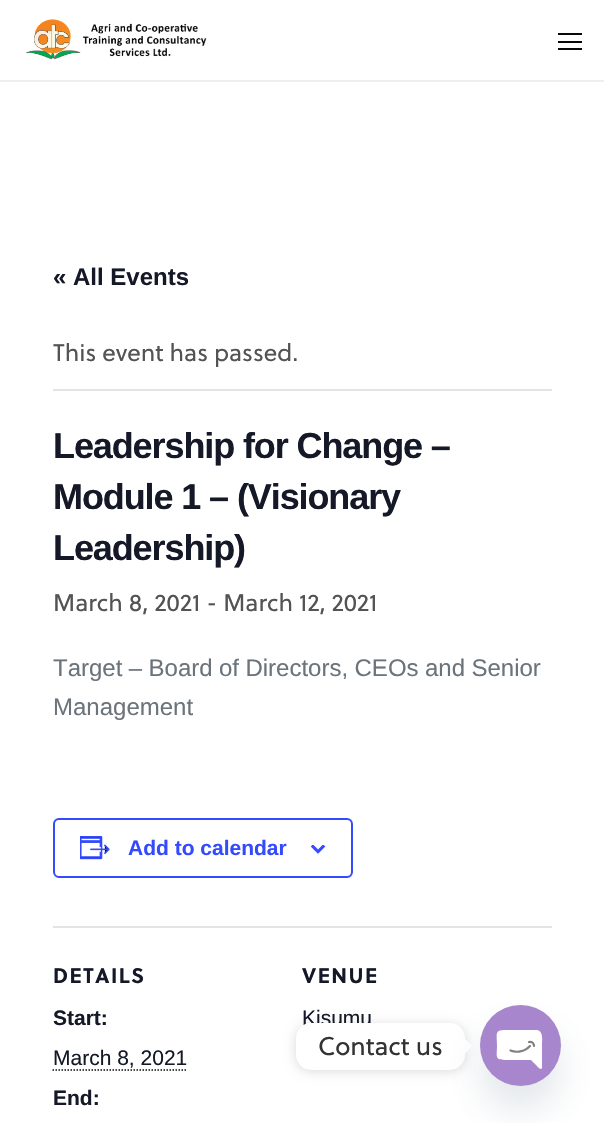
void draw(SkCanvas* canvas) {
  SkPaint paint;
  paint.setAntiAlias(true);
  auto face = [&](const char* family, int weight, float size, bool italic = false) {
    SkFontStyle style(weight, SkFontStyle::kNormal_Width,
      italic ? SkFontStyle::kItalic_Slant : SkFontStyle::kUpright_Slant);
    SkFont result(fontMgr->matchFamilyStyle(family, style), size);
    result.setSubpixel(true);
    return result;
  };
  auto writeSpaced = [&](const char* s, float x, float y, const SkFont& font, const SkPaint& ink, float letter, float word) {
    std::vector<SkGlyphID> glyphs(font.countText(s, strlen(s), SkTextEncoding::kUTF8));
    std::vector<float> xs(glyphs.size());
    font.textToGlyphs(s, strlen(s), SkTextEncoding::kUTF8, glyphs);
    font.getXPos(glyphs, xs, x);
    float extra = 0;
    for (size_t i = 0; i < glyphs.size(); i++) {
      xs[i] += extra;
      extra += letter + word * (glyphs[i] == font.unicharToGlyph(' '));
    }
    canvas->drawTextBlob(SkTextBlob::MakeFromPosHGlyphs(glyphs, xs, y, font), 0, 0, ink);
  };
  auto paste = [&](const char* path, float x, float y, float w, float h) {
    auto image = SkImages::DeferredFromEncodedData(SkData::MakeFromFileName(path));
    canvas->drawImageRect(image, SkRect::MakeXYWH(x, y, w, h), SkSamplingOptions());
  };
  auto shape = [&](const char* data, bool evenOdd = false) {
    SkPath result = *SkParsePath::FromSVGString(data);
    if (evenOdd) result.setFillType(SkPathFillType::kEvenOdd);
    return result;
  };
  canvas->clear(0xffffffff);
  paint.setColor(0xffeeeeee);
  canvas->drawRect(SkRect::MakeXYWH(0, 80, 604, 2), paint);
  paste("img/1.png", 26, 19, 181, 41);
  {
    const struct { float x, y, w, h; SkColor color; } items[] = {
      {558, 33, 24, 2, 0xff090909},
      {558, 41, 24, 2, 0xff090909},
      {558, 48, 24, 2, 0xff090909},
      {53, 389, 499, 2, 0xffe4e4e4},
    };
    for (auto [x, y, w, h, color] : items) {
      paint.setColor(color);
      canvas->drawRect(SkRect::MakeXYWH(x, y, w, h), paint);
    }
  }
  paint.setStroke(true);
  paint.setStrokeWidth(2);
  paint.setColor(0xff334aff);
  canvas->drawRoundRect(SkRect::MakeXYWH(54, 819, 298, 58), 5, 5, paint);
  paste("img/2.png", 80, 836, 30, 24);
  paste("img/3.png", 311, 845, 15, 9);
  paint.setStroke(false);
  paint.setColor(0xffe4e4e4);
  canvas->drawRect(SkRect::MakeXYWH(53, 926, 499, 2), paint);
  paint.setStroke(true);
  paint.setStrokeWidth(1.5f);
  paint.setColor(0xff0a0a0a);
  paint.setPathEffect(SkDashPathEffect::Make({{1.5f, 1.5f}}, 0));
  canvas->drawPath(shape("M52.5 1070H187.5"), paint);
  paint.setPathEffect(nullptr);
  paint.setStroke(false);
  paint.setColor(0x26000000);
  paint.setMaskFilter(SkMaskFilter::MakeBlur(kNormal_SkBlurStyle, 6));
  canvas->drawRoundRect(SkRect::MakeXYWH(296, 1025, 169, 46), 15, 15, paint);
  paint.setMaskFilter(nullptr);
  paint.setColor(0xffffffff);
  canvas->drawPath(shape("M465 1054V1039L472.5 1046Z"), paint);
  auto f0 = face("Liberation Sans", 700, 24);
  paint.setColor(0xff141827);
  canvas->drawString("« All Events", 53, 285, f0, paint);
  auto f1 = face("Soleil", 400, 24);
  paint.setColor(0xff535353);
  canvas->drawString("This event has passed.", 53, 361, f1, paint);
  auto f2 = face("Liberation Sans", 700, 36);
  paint.setColor(0xff141827);
  {
    const struct { const char* s; float x, y; } items[] = {
      {"Leadership for Change –", 53, 458},
      {"Module 1 – (Visionary", 53, 509},
      {"Leadership)", 53, 560},
    };
    for (auto [s, x, y] : items) {
      writeSpaced(s, x, y, f2, paint, -1.1f, 0);
    }
  }
  paint.setColor(0xff535353);
  canvas->drawString("March 8, 2021 - March 12, 2021", 53, 611, f1, paint);
  auto f3 = face("Liberation Sans", 400, 24);
  paint.setColor(0xff6b737b);
  writeSpaced("Target – Board of Directors, CEOs and Senior", 53, 676, f3, paint, 0, -0.25f);
  canvas->drawString("Management", 53, 715, f3, paint);
  auto f4 = face("Liberation Sans", 700, 21);
  paint.setColor(0xff334aff);
  canvas->drawString("Add to calendar", 128, 855, f4, paint);
  auto f5 = face("Soleil", 700, 21);
  paint.setColor(0xff141827);
  writeSpaced("DETAILS", 53, 983, f5, paint, 1.5f, 0);
  canvas->drawString("Start:", 53, 1025, f4, paint);
  auto f6 = face("Liberation Sans", 400, 21);
  canvas->drawString("March 8, 2021", 53, 1065, f6, paint);
  canvas->drawString("End:", 53, 1105, f4, paint);
  writeSpaced("VENUE", 302, 983, f5, paint, 1.5f, 0);
  canvas->drawString("Kisumu", 302, 1025, f6, paint);
  paint.setColor(0xffffffff);
  canvas->drawRoundRect(SkRect::MakeXYWH(296, 1023, 169, 47), 15, 15, paint);
  auto f7 = face("Soleil", 400, 25.5f);
  paint.setColor(0xff333333);
  canvas->drawString("Contact us", 318, 1055, f7, paint);
  paint.setColor(0x2949687e);
  paint.setMaskFilter(SkMaskFilter::MakeBlur(kNormal_SkBlurStyle, 18));
  canvas->drawRoundRect(SkRect::MakeXYWH(480, 1029, 81, 81), 40.5f, 40.5f, paint);
  paint.setMaskFilter(nullptr);
  paint.setColor(0xffa886cd);
  canvas->drawCircle(520.5f, 1045.5f, 40.5f, paint);
  paint.setColor(0xffffffff);
  canvas->drawPath(shape("M536 1030H508C494 1030 497 1032 497 1045C497 1057 494 1060 507 1060H531L537 1066C537 1066 541 1071 542 1068V1046C542 1041 544 1030 536 1030Z"), paint);
  paint.setStroke(true);
  paint.setStrokeWidth(2.2f);
  paint.setStrokeCap(SkPaint::kRound_Cap);
  paint.setStrokeJoin(SkPaint::kRound_Join);
  paint.setColor(0xff808080);
  canvas->drawPath(shape("M510.5 1050.5C514 1052 523 1053.5 530 1046M534 1046C534 1044.5 533 1041 529 1042"), paint);
}
